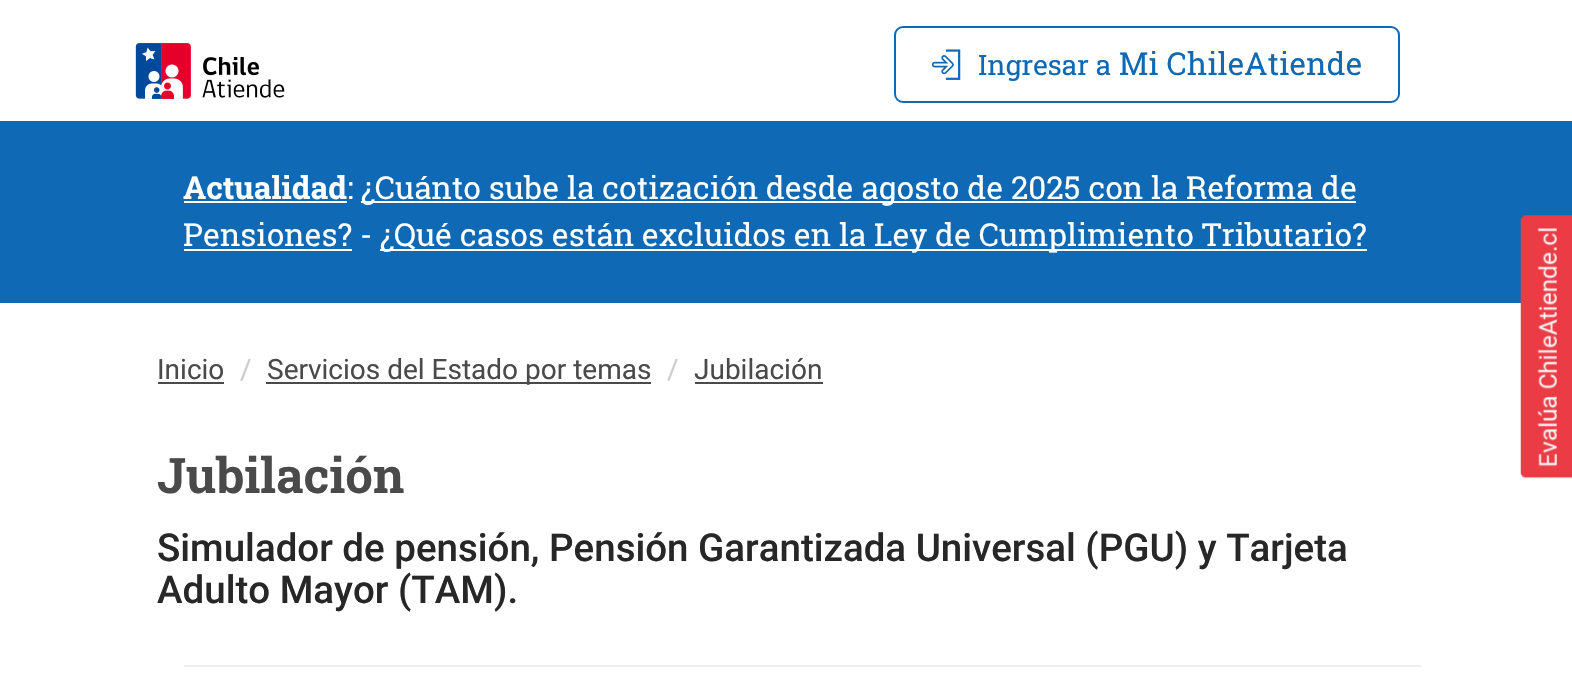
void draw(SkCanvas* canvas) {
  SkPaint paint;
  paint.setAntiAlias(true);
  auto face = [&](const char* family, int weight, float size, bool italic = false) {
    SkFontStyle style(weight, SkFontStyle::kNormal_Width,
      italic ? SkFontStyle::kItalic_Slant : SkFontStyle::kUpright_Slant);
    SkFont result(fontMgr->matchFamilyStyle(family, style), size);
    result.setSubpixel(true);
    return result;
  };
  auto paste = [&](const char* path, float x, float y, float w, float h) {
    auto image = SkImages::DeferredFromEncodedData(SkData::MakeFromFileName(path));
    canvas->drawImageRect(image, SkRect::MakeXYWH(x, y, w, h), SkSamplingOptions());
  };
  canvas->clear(0xffffffff);
  paste("img/1.png", 135, 43, 150, 56);
  paint.setStroke(true);
  paint.setStrokeWidth(2);
  paint.setColor(0xff0f69b4);
  canvas->drawRoundRect(SkRect::MakeXYWH(895, 27, 504, 75), 8, 8, paint);
  paste("img/2.png", 931, 49, 30, 31);
  paint.setStroke(false);
  {
    const struct { float x, y, w, h; SkColor color; } items[] = {
      {0, 121, 1572, 182, 0xff0f69b4},
      {184, 201, 163, 2, 0xffffffff},
      {361, 201, 995, 2, 0xffffffff},
      {184, 249, 168, 2, 0xffffffff},
      {380, 249, 987, 2, 0xffffffff},
      {158, 382, 66, 2, 0xff4a4a4a},
      {266, 382, 385, 2, 0xff4a4a4a},
      {695, 382, 128, 2, 0xff4a4a4a},
      {184, 665, 1237, 2, 0xffeeeeee},
    };
    for (auto [x, y, w, h, color] : items) {
      paint.setColor(color);
      canvas->drawRect(SkRect::MakeXYWH(x, y, w, h), paint);
    }
  }
  paste("img/3.png", 1520, 215, 52, 264);
  auto f0 = face("Roboto Slab", 400, 28);
  paint.setColor(0xff0f69b4);
  canvas->drawString("Ingresar a", 978, 75, f0, paint);
  auto f1 = face("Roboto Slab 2", 400, 31.5f);
  canvas->drawString("Mi ChileAtiende", 1119, 75, f1, paint);
  auto f2 = face("Roboto Slab", 700, 31.5f);
  paint.setColor(0xffffffff);
  canvas->drawString("Actualidad", 183, 199, f2, paint);
  auto f3 = face("Roboto Slab", 400, 31.5f);
  canvas->drawString(":", 347, 199, f3, paint);
  {
    const struct { const char* s; float x, y; } items[] = {
      {"¿Cuánto sube la cotización desde agosto de 2025 con la Reforma de", 361, 199},
      {"Pensiones? -", 183, 246},
      {"¿Qué casos están excluidos en la Ley de Cumplimiento Tributario?", 380, 246},
    };
    for (auto [s, x, y] : items) {
      canvas->drawString(s, x, y, f1, paint);
    }
  }
  auto f4 = face("Roboto", 400, 28);
  paint.setColor(0xff4a4a4a);
  canvas->drawString("Inicio", 157, 379, f4, paint);
  paint.setColor(0xffcccccc);
  canvas->drawString("/", 240, 379, f4, paint);
  paint.setColor(0xff4a4a4a);
  canvas->drawString("Servicios del Estado por temas", 267, 379, f4, paint);
  paint.setColor(0xffcccccc);
  canvas->drawString("/", 667, 379, f4, paint);
  paint.setColor(0xff4a4a4a);
  canvas->drawString("Jubilación", 694, 379, f4, paint);
  auto f5 = face("Roboto Slab", 700, 49);
  canvas->drawString("Jubilación", 157, 493, f5, paint);
  auto f6 = face("Roboto", 500, 38.5f);
  paint.setColor(0xff272727);
  canvas->drawString("Simulador de pensión, Pensión Garantizada Universal (PGU) y Tarjeta", 157, 561, f6, paint);
  canvas->drawString("Adulto Mayor (TAM).", 157, 603, f6, paint);
}
